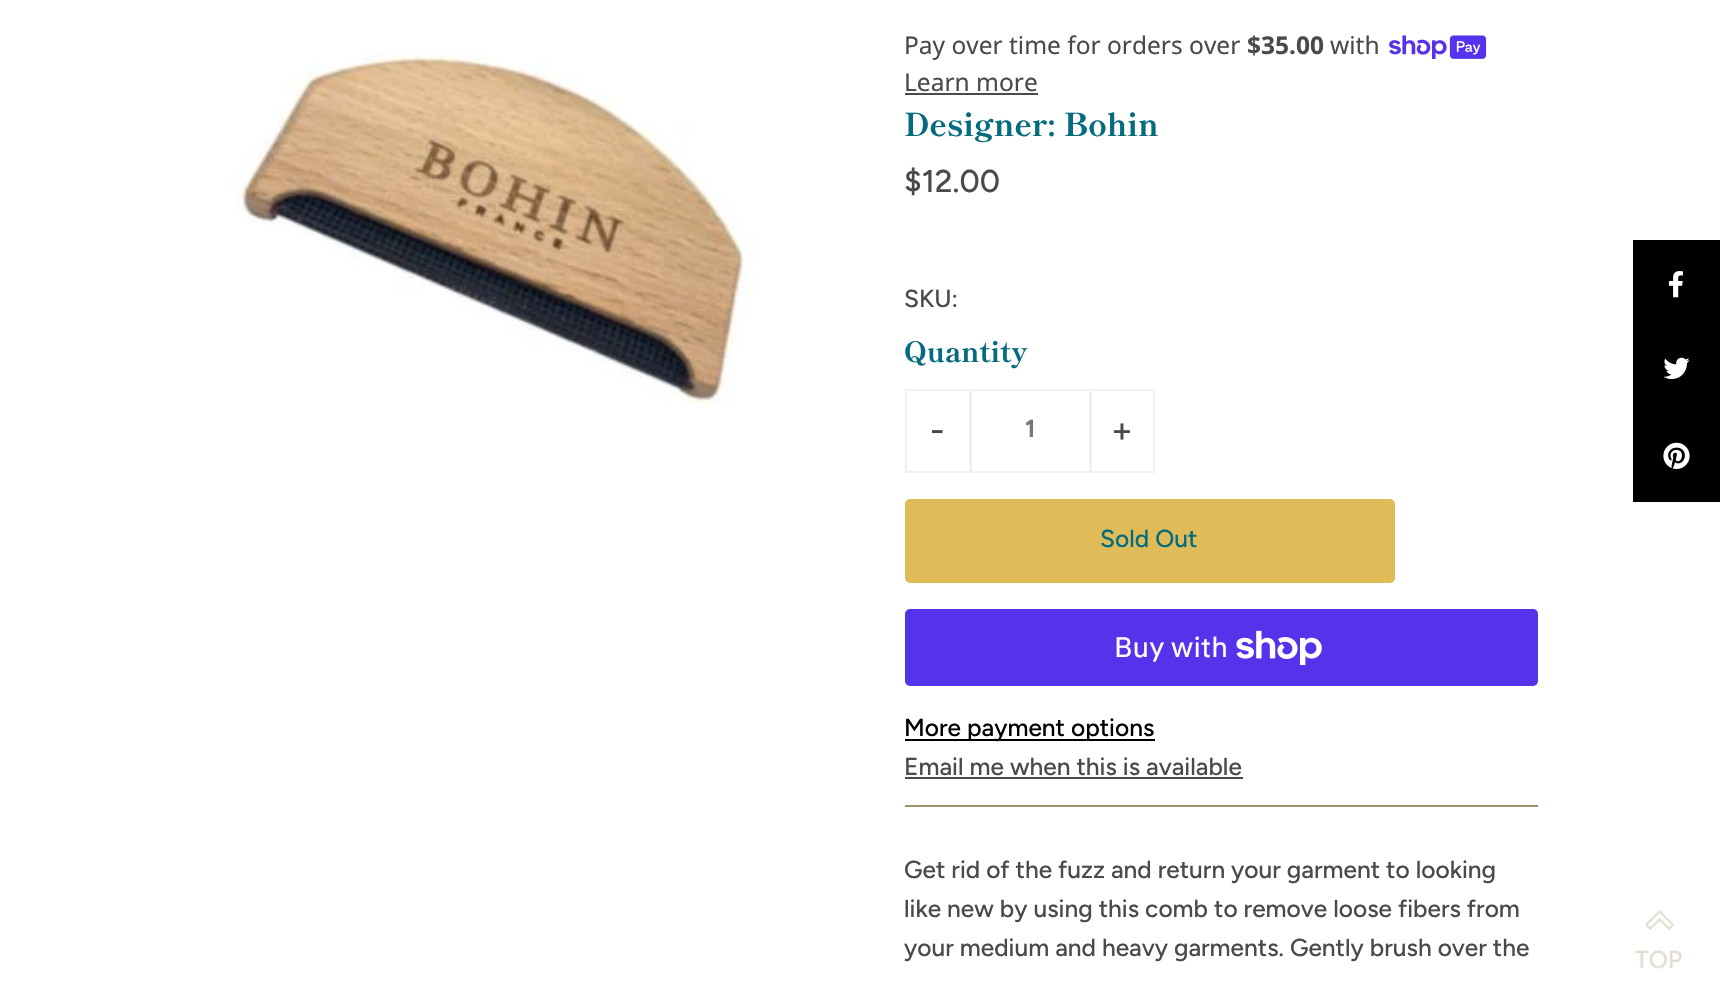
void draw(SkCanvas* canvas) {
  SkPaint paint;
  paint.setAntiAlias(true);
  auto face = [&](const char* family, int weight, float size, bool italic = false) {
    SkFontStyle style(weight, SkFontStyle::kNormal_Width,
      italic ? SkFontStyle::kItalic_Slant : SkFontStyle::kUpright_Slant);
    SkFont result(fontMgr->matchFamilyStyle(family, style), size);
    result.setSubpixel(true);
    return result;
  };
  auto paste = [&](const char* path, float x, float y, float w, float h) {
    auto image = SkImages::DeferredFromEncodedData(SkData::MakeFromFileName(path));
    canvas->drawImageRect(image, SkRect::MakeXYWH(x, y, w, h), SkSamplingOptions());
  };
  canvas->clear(0xffffffff);
  paste("img/1.png", 236, 53, 521, 353);
  paint.setColor(0xffa09167);
  canvas->drawRect(SkRect::MakeXYWH(905, 805, 633, 2), paint);
  paste("img/2.png", 1389, 35, 98, 24);
  paint.setColor(0xff4a4a4a);
  canvas->drawRect(SkRect::MakeXYWH(905, 93, 133, 2), paint);
  paint.setStroke(true);
  paint.setStrokeWidth(2);
  paint.setColor(0xfff0f0f0);
  canvas->drawRect(SkRect::MakeXYWH(906, 390, 64, 82), paint);
  paint.setStroke(false);
  paint.setColor(0xffffffff);
  canvas->drawRoundRect(SkRect::MakeXYWH(971, 390, 120, 82), 3, 3, paint);
  paint.setStroke(true);
  paint.setColor(0xfff0f0f0);
  canvas->drawRoundRect(SkRect::MakeXYWH(971, 390, 120, 82), 3, 3, paint);
  canvas->drawRect(SkRect::MakeXYWH(1090, 390, 64, 82), paint);
  paint.setStroke(false);
  paint.setColor(0xffe0bc59);
  canvas->drawRoundRect(SkRect::MakeXYWH(905, 499, 490, 84), 5, 5, paint);
  paint.setColor(0xff5433eb);
  canvas->drawRoundRect(SkRect::MakeXYWH(905, 609, 633, 77), 5, 5, paint);
  paste("img/3.png", 1236, 630, 86, 35);
  {
    const struct { float x, y, w, h; SkColor color; } items[] = {
      {905, 739, 250, 2, 0xff000000},
      {905, 777, 338, 2, 0xff4a4a4a},
      {1633, 240, 87, 262, 0xff000000},
    };
    for (auto [x, y, w, h, color] : items) {
      paint.setColor(color);
      canvas->drawRect(SkRect::MakeXYWH(x, y, w, h), paint);
    }
  }
  paste("img/4.png", 1668, 271, 15, 27);
  paste("img/5.png", 1663, 357, 27, 22);
  paste("img/6.png", 1663, 442, 27, 27);
  paste("img/7.png", 1645, 910, 29, 20);
  auto f0 = face("Noto Sans", 400, 24.5f);
  paint.setColor(0xff4a4a4a);
  canvas->drawString("Pay over time for orders over", 904, 54, f0, paint);
  auto f1 = face("Noto Sans", 700, 24.5f);
  canvas->drawString("$35.00", 1247, 54, f1, paint);
  canvas->drawString("with", 1330, 54, f0, paint);
  canvas->drawString("Learn more", 904, 91, f0, paint);
  auto f2 = face("Shippori Mincho", 800, 31.5f);
  paint.setColor(0xff056b7e);
  canvas->drawString("Designer: Bohin", 904, 136, f2, paint);
  auto f3 = face("Figtree", 500, 31.5f);
  paint.setColor(0xff4a4a4a);
  canvas->drawString("$12.00", 904, 192, f3, paint);
  auto f4 = face("Figtree", 500, 24.5f);
  canvas->drawString("SKU:", 904, 307, f4, paint);
  auto f5 = face("Shippori Mincho", 800, 28);
  paint.setColor(0xff056b7e);
  canvas->drawString("Quantity", 904, 362, f5, paint);
  auto f6 = face("Figtree", 500, 35);
  paint.setColor(0xff4a4a4a);
  canvas->drawString("-", 930, 442, f6, paint);
  auto f7 = face("Figtree", 700, 24.5f);
  paint.setColor(0xff777777);
  canvas->drawString("1", 1025, 437, f7, paint);
  paint.setColor(0xff4a4a4a);
  canvas->drawString("+", 1111, 442, f6, paint);
  paint.setColor(0xff056b7e);
  canvas->drawString("Sold Out", 1100, 547, f4, paint);
  auto f8 = face("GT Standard", 400, 28);
  paint.setColor(0xffffffff);
  canvas->drawString("Buy with", 1114, 657, f8, paint);
  paint.setColor(0xff000000);
  canvas->drawString("More payment options", 904, 736, f4, paint);
  paint.setColor(0xff4a4a4a);
  {
    const struct { const char* s; float x, y; } items[] = {
      {"Email me when this is available", 904, 775},
      {"Get rid of the fuzz and return your garment to looking", 904, 878},
      {"like new by using this comb to remove loose fibers from", 904, 917},
      {"your medium and heavy garments. Gently brush over the", 904, 956},
    };
    for (auto [s, x, y] : items) {
      canvas->drawString(s, x, y, f4, paint);
    }
  }
  paint.setColor(0xffe3ded1);
  canvas->drawString("TOP", 1635, 968, f4, paint);
}
